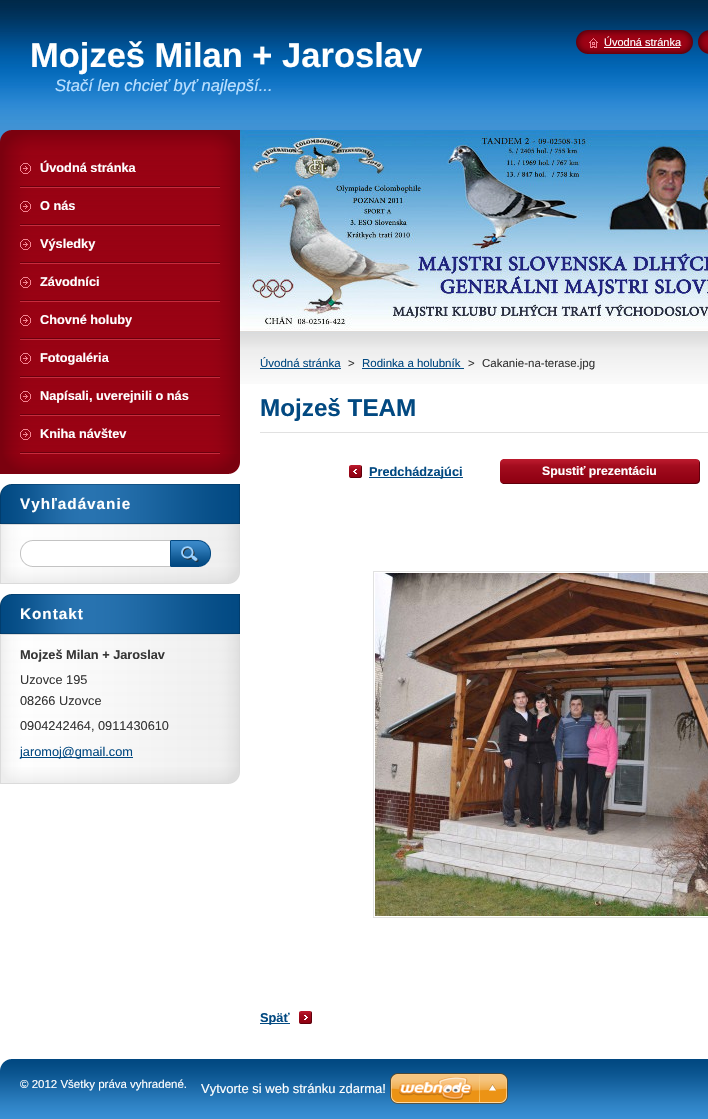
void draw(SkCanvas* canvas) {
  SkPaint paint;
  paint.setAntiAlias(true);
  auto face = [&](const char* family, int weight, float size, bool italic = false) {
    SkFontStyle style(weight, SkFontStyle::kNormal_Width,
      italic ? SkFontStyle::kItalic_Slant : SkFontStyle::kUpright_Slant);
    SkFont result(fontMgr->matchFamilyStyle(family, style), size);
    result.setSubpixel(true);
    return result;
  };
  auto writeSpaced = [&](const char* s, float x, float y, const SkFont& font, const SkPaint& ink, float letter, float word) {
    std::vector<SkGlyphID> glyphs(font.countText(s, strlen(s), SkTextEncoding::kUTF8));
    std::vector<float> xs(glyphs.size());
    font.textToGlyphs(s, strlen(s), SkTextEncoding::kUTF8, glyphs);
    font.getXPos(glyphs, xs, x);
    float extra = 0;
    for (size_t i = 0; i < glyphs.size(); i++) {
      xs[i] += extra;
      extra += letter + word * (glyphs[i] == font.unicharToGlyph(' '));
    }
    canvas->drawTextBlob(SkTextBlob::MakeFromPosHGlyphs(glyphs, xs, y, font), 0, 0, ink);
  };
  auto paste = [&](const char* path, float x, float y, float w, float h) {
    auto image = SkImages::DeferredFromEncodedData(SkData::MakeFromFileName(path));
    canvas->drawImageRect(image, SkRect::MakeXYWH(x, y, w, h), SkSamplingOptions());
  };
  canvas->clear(0xffffffff);
  paste("img/1.png", 0, 0, 708, 384);
  paste("img/2.png", 576, 30, 13, 24);
  paste("img/3.png", 589, 30, 104, 24);
  paste("img/4.png", 589, 38, 9, 10);
  paint.setColor(0xffffffff);
  canvas->drawRect(SkRect::MakeXYWH(604, 47, 76, 1), paint);
  paste("img/5.png", 698, 30, 10, 24);
  paste("img/6.png", 0, 130, 240, 20);
  paste("img/7.png", 0, 454, 240, 20);
  paste("img/8.png", 0, 150, 240, 304);
  paste("img/9.png", 20, 186, 200, 2);
  paste("img/10.png", 20, 163, 11, 11);
  paste("img/9.png", 20, 224, 200, 2);
  paste("img/10.png", 20, 201, 11, 11);
  paste("img/9.png", 20, 262, 200, 2);
  paste("img/10.png", 20, 239, 11, 11);
  paste("img/9.png", 20, 300, 200, 2);
  paste("img/10.png", 20, 277, 11, 11);
  paste("img/9.png", 20, 338, 200, 2);
  paste("img/10.png", 20, 315, 11, 11);
  paste("img/9.png", 20, 376, 200, 2);
  paste("img/10.png", 20, 353, 11, 11);
  paste("img/9.png", 20, 414, 200, 2);
  paste("img/10.png", 20, 391, 11, 11);
  paste("img/9.png", 20, 452, 200, 2);
  paste("img/10.png", 20, 429, 11, 11);
  paste("img/11.png", 0, 567, 240, 17);
  paste("img/12.png", 0, 484, 240, 40);
  paste("img/13.png", 0, 525, 240, 42);
  paint.setColor(0xffdbdbdb);
  canvas->drawRect(SkRect::MakeXYWH(0, 524, 240, 1), paint);
  paste("img/14.png", 20, 540, 150, 27);
  paste("img/15.png", 170, 540, 41, 27);
  paste("img/11.png", 0, 767, 240, 17);
  paste("img/12.png", 0, 594, 240, 40);
  paste("img/16.png", 0, 635, 240, 132);
  canvas->drawRect(SkRect::MakeXYWH(0, 634, 240, 1), paint);
  paint.setColor(0xff024981);
  canvas->drawRect(SkRect::MakeXYWH(20, 757, 113, 1), paint);
  paste("img/17.png", 240, 130, 468, 200);
  {
    const struct { float x, y, w, h; SkColor color; } items[] = {
      {260, 368, 81, 1, 0xff024981},
      {362, 368, 102, 1, 0xff024981},
      {260, 432, 448, 1, 0xffe1e1e1},
    };
    for (auto [x, y, w, h, color] : items) {
      paint.setColor(color);
      canvas->drawRect(SkRect::MakeXYWH(x, y, w, h), paint);
    }
  }
  paste("img/18.png", 349, 465, 13, 13);
  paint.setColor(0xff024981);
  canvas->drawRect(SkRect::MakeXYWH(369, 477, 94, 1), paint);
  paste("img/19.png", 500, 459, 3, 25);
  paste("img/20.png", 503, 459, 197, 25);
  paint.setStroke(true);
  paint.setStrokeWidth(1);
  paint.setColor(0xffe1e1e1);
  canvas->drawRect(SkRect::MakeXYWH(373.5f, 571.5f, 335, 346), paint);
  paste("img/21.png", 375, 573, 333, 343);
  paste("img/22.png", 299, 1011, 13, 13);
  paint.setStroke(false);
  paint.setColor(0xff024981);
  canvas->drawRect(SkRect::MakeXYWH(260, 1023, 30, 1), paint);
  paste("img/23.png", 0, 1059, 708, 60);
  paste("img/24.png", 390, 1073, 118, 31);
  auto f0 = face("Liberation Sans", 700, 34.5f);
  paint.setColor(0xffffffff);
  canvas->drawString("Mojzeš Milan + Jaroslav", 30, 67, f0, paint);
  auto f1 = face("Liberation Sans", 400, 16.6f, true);
  paint.setColor(0xffbae0ff);
  canvas->drawString("Stačí len chcieť byť najlepší...", 55, 91, f1, paint);
  auto f2 = face("Liberation Sans", 400, 11);
  paint.setColor(0xffffffff);
  canvas->drawString("Úvodná stránka", 604, 46, f2, paint);
  auto f3 = face("Liberation Sans", 700, 12.75f);
  {
    const struct { const char* s; float x, y; } items[] = {
      {"Úvodná stránka", 40, 172},
      {"O nás", 40, 210},
      {"Výsledky", 40, 248},
      {"Závodníci", 40, 286},
      {"Chovné holuby", 40, 324},
      {"Fotogaléria", 40, 362},
      {"Napísali, uverejnili o nás", 40, 400},
      {"Kniha návštev", 40, 438},
    };
    for (auto [s, x, y] : items) {
      canvas->drawString(s, x, y, f3, paint);
    }
  }
  auto f4 = face("Liberation Sans", 700, 15.25f);
  writeSpaced("Vyhľadávanie", 20, 509, f4, paint, 1, 0);
  writeSpaced("Kontakt", 20, 619, f4, paint, 1, 0);
  paint.setColor(0xff363636);
  canvas->drawString("Mojzeš Milan + Jaroslav", 20, 659, f3, paint);
  auto f5 = face("Liberation Sans", 400, 12.75f);
  {
    const struct { const char* s; float x, y; } items[] = {
      {"Uzovce 195", 20, 684},
      {"08266 Uzovce", 20, 705},
      {"0904242464, 0911430610", 20, 730},
    };
    for (auto [s, x, y] : items) {
      canvas->drawString(s, x, y, f5, paint);
    }
  }
  paint.setColor(0xff024981);
  canvas->drawString("jaromoj@gmail.com", 20, 756, f5, paint);
  auto f6 = face("Liberation Sans", 400, 11.5f);
  canvas->drawString("Úvodná stránka", 260, 367, f6, paint);
  paint.setColor(0xff363636);
  canvas->drawString(">", 348, 367, f6, paint);
  paint.setColor(0xff024981);
  canvas->drawString("Rodinka a holubník", 362, 367, f6, paint);
  paint.setColor(0xff363636);
  canvas->drawString(">", 468, 367, f6, paint);
  canvas->drawString("Cakanie-na-terase.jpg", 482, 367, f6, paint);
  auto f7 = face("Liberation Sans", 700, 24.25f);
  paint.setColor(0xff024981);
  canvas->drawString("Mojzeš TEAM", 260, 416, f7, paint);
  canvas->drawString("Predchádzajúci", 369, 476, f3, paint);
  auto f8 = face("Liberation Sans", 700, 12.25f);
  paint.setColor(0xffffffff);
  canvas->drawString("Spustiť prezentáciu", 542, 475, f8, paint);
  paint.setColor(0xff024981);
  canvas->drawString("Späť", 260, 1022, f3, paint);
  paint.setColor(0xffffffff);
  canvas->drawString("© 2012 Všetky práva vyhradené.", 20, 1088, f6, paint);
  auto f9 = face("Liberation Sans", 400, 13);
  canvas->drawString("Vytvorte si web stránku zdarma!", 201, 1093, f9, paint);
}
